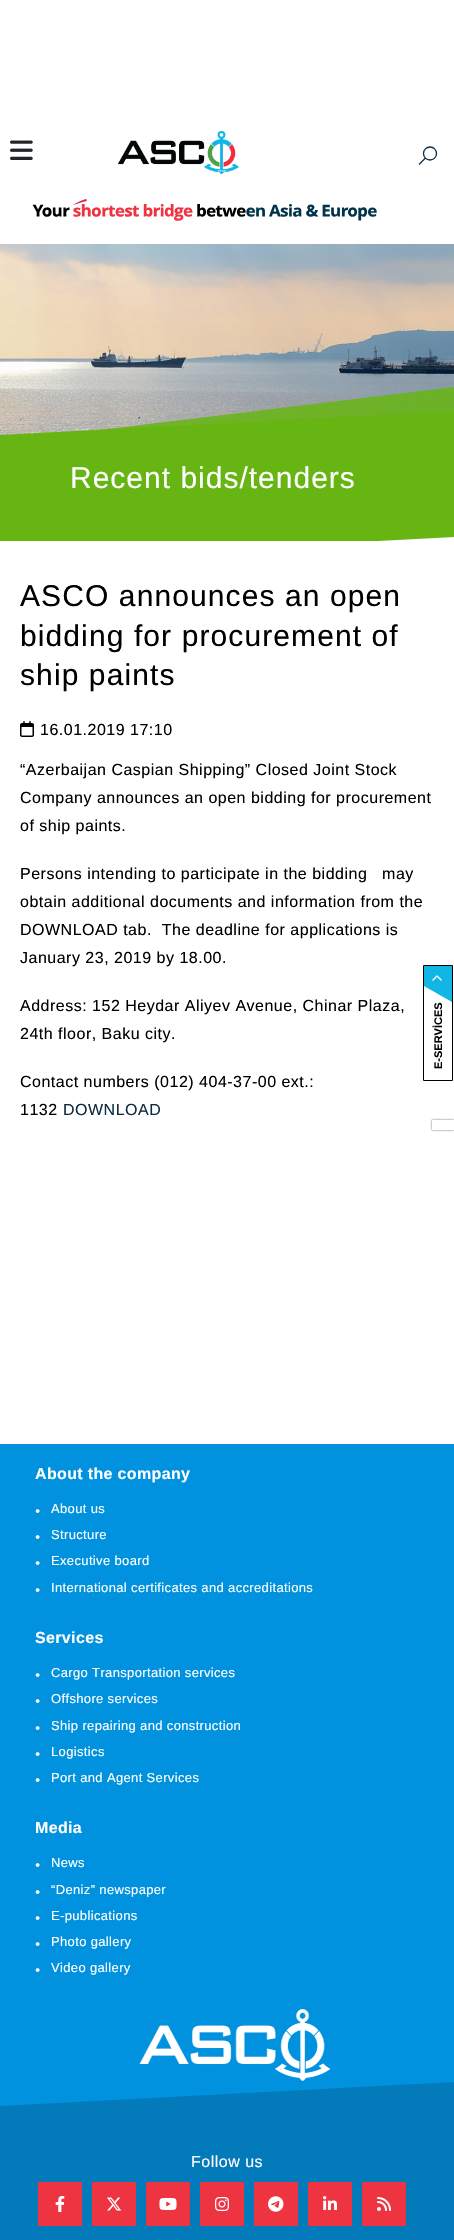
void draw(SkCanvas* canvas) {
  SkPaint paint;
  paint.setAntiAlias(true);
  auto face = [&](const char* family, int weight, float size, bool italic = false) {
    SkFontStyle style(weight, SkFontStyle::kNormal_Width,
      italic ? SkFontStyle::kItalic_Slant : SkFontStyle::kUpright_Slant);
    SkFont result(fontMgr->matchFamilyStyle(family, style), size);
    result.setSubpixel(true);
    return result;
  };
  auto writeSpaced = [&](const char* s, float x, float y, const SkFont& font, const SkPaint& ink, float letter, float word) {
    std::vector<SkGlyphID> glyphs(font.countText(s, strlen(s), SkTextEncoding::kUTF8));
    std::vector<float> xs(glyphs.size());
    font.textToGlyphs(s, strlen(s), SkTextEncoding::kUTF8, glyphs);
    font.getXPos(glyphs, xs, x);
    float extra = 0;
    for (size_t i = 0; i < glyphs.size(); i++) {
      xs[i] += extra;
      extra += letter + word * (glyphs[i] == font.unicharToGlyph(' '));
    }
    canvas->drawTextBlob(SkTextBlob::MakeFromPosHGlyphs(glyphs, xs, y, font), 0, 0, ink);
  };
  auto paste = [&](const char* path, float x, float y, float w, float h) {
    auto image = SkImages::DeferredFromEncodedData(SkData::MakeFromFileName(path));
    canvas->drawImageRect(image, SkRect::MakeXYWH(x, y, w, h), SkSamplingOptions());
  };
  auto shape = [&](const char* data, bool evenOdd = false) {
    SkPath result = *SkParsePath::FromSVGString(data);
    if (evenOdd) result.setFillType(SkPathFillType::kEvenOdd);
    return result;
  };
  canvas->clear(0xffffffff);
  paste("img/1.png", 10, 140, 23, 20);
  paste("img/2.png", 118, 131, 121, 43);
  paste("img/3.png", 32, 198, 345, 23);
  paint.setStroke(true);
  paint.setStrokeWidth(1.3f);
  paint.setColor(0xff0d2a40);
  canvas->drawCircle(430, 153.5f, 6.5f, paint);
  canvas->drawPath(shape("M419 164.5L425.5 158"), paint);
  paste("img/4.png", 0, 244, 454, 191);
  canvas->save();
  canvas->clipRect(SkRect::MakeXYWH(0, 244, 454, 297));
  paint.setStroke(false);
  paint.setColor(0xd966b512);
  canvas->drawPath(shape("M0 442L454 387V497L0 553Z"), paint);
  paint.setColor(0xff66b512);
  canvas->drawPath(shape("M0 435L454 411V537L0 561Z"), paint);
  canvas->restore();
  paste("img/5.png", 20, 721, 14, 16);
  paint.setColor(0xff0091df);
  canvas->drawRect(SkRect::MakeXYWH(0, 1444, 454, 663), paint);
  paste("img/6.png", 139, 2009, 192, 72);
  paint.setColor(0xff037bbb);
  canvas->drawPath(shape("M-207 2117L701 2069V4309L-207 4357Z"), paint);
  paint.setColor(0xffee3441);
  canvas->drawRect(SkRect::MakeXYWH(38, 2182, 44, 44), paint);
  paste("img/7.png", 55, 2196, 10, 16);
  canvas->drawRect(SkRect::MakeXYWH(92, 2182, 44, 44), paint);
  paste("img/8.png", 107, 2197, 15, 14);
  canvas->drawRect(SkRect::MakeXYWH(146, 2182, 44, 44), paint);
  paste("img/9.png", 159, 2198, 18, 12);
  canvas->drawRect(SkRect::MakeXYWH(200, 2182, 44, 44), paint);
  paste("img/10.png", 215, 2197, 14, 14);
  canvas->drawRect(SkRect::MakeXYWH(254, 2182, 44, 44), paint);
  paste("img/11.png", 268, 2196, 16, 16);
  canvas->drawRect(SkRect::MakeXYWH(308, 2182, 44, 44), paint);
  paste("img/12.png", 323, 2196, 14, 14);
  canvas->drawRect(SkRect::MakeXYWH(362, 2182, 44, 44), paint);
  paste("img/13.png", 377, 2197, 14, 14);
  canvas->save();
  canvas->clipPath(shape("M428 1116H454V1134H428ZM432 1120H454V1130H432Z", true), true);
  paint.setColor(0xff666666);
  paint.setMaskFilter(SkMaskFilter::MakeBlur(kNormal_SkBlurStyle, 1));
  canvas->drawRect(SkRect::MakeXYWH(432, 1120, 22, 10), paint);
  paint.setMaskFilter(nullptr);
  canvas->restore();
  paint.setStroke(true);
  paint.setStrokeWidth(1);
  paint.setColor(0xff000000);
  canvas->drawPath(shape("M423.5 1080.5V965.5H452.5V1080.5Z"), paint);
  paint.setStroke(false);
  paint.setColor(0xff11b6e4);
  canvas->drawPath(shape("M452 966V1002L424 986V966Z"), paint);
  paste("img/14.png", 432, 975, 10, 6);
  auto f0 = face("Liberation Sans", 400, 30);
  paint.setColor(0xffffffff);
  writeSpaced("Recent bids/tenders", 70, 488, f0, paint, 1, 0);
  paint.setColor(0xff000000);
  {
    const struct { const char* s; float x, y; } items[] = {
      {"ASCO announces an open", 20, 606},
      {"bidding for procurement of", 20, 646},
      {"ship paints", 20, 685},
    };
    for (auto [s, x, y] : items) {
      writeSpaced(s, x, y, f0, paint, 1.1f, 0);
    }
  }
  auto f1 = face("Liberation Sans", 400, 16);
  {
    const struct { const char* s; float x, y; } items[] = {
      {"16.01.2019 17:10", 40, 735},
      {"“Azerbaijan Caspian Shipping” Closed Joint Stock", 20, 775},
      {"Company announces an open bidding for procurement", 20, 803},
      {"of ship paints.", 20, 831},
      {"Persons intending to participate in the bidding   may", 20, 879},
      {"obtain additional documents and information from the", 20, 907},
      {"DOWNLOAD tab.  The deadline for applications is", 20, 935},
      {"January 23, 2019 by 18.00.", 20, 963},
      {"Address: 152 Heydar Aliyev Avenue, Chinar Plaza,", 20, 1011},
      {"24th floor, Baku city.", 20, 1039},
      {"Contact numbers (012) 404-37-00 ext.:", 20, 1087},
      {"1132", 20, 1115},
    };
    for (auto [s, x, y] : items) {
      writeSpaced(s, x, y, f1, paint, 0.5f, 0);
    }
  }
  paint.setColor(0xff0d2a40);
  writeSpaced("DOWNLOAD", 63, 1115, f1, paint, 0.5f, 0);
  auto f2 = face("Liberation Sans", 700, 16);
  paint.setColor(0xffffffff);
  writeSpaced("About the company", 35, 1479, f2, paint, 0.35f, 0);
  auto f3 = face("Liberation Serif", 400, 15);
  writeSpaced("•", 35, 1516, f3, paint, 0.35f, 0);
  auto f4 = face("Liberation Sans", 400, 13);
  writeSpaced("About us", 51, 1513, f4, paint, 0.35f, 0);
  writeSpaced("•", 35, 1542, f3, paint, 0.35f, 0);
  writeSpaced("Structure", 51, 1539, f4, paint, 0.35f, 0);
  writeSpaced("•", 35, 1568, f3, paint, 0.35f, 0);
  writeSpaced("Executive board", 51, 1565, f4, paint, 0.35f, 0);
  writeSpaced("•", 35, 1595, f3, paint, 0.35f, 0);
  writeSpaced("International certificates and accreditations", 51, 1592, f4, paint, 0.35f, 0);
  writeSpaced("Services", 35, 1643, f2, paint, 0.35f, 0);
  writeSpaced("•", 35, 1680, f3, paint, 0.35f, 0);
  writeSpaced("Cargo Transportation services", 51, 1677, f4, paint, 0.35f, 0);
  writeSpaced("•", 35, 1706, f3, paint, 0.35f, 0);
  writeSpaced("Offshore services", 51, 1703, f4, paint, 0.35f, 0);
  writeSpaced("•", 35, 1733, f3, paint, 0.35f, 0);
  writeSpaced("Ship repairing and construction", 51, 1730, f4, paint, 0.35f, 0);
  writeSpaced("•", 35, 1759, f3, paint, 0.35f, 0);
  writeSpaced("Logistics", 51, 1756, f4, paint, 0.35f, 0);
  writeSpaced("•", 35, 1785, f3, paint, 0.35f, 0);
  writeSpaced("Port and Agent Services", 51, 1782, f4, paint, 0.35f, 0);
  writeSpaced("Media", 35, 1833, f2, paint, 0.35f, 0);
  writeSpaced("•", 35, 1870, f3, paint, 0.35f, 0);
  writeSpaced("News", 51, 1867, f4, paint, 0.35f, 0);
  writeSpaced("•", 35, 1897, f3, paint, 0.35f, 0);
  writeSpaced("“Deniz” newspaper", 51, 1894, f4, paint, 0.35f, 0);
  writeSpaced("•", 35, 1923, f3, paint, 0.35f, 0);
  writeSpaced("E-publications", 51, 1920, f4, paint, 0.35f, 0);
  writeSpaced("•", 35, 1949, f3, paint, 0.35f, 0);
  writeSpaced("Photo gallery", 51, 1946, f4, paint, 0.35f, 0);
  writeSpaced("•", 35, 1975, f3, paint, 0.35f, 0);
  writeSpaced("Video gallery", 51, 1972, f4, paint, 0.35f, 0);
  writeSpaced("Follow us", 191, 2167, f1, paint, 0.5f, 0);
  auto f5 = face("Liberation Sans", 700, 11);
  paint.setColor(0xff000000);
  canvas->save();
  canvas->rotate(-90, 442, 1069);
  canvas->drawString("E-SERVİCES", 442, 1069, f5, paint);
  canvas->restore();
}
